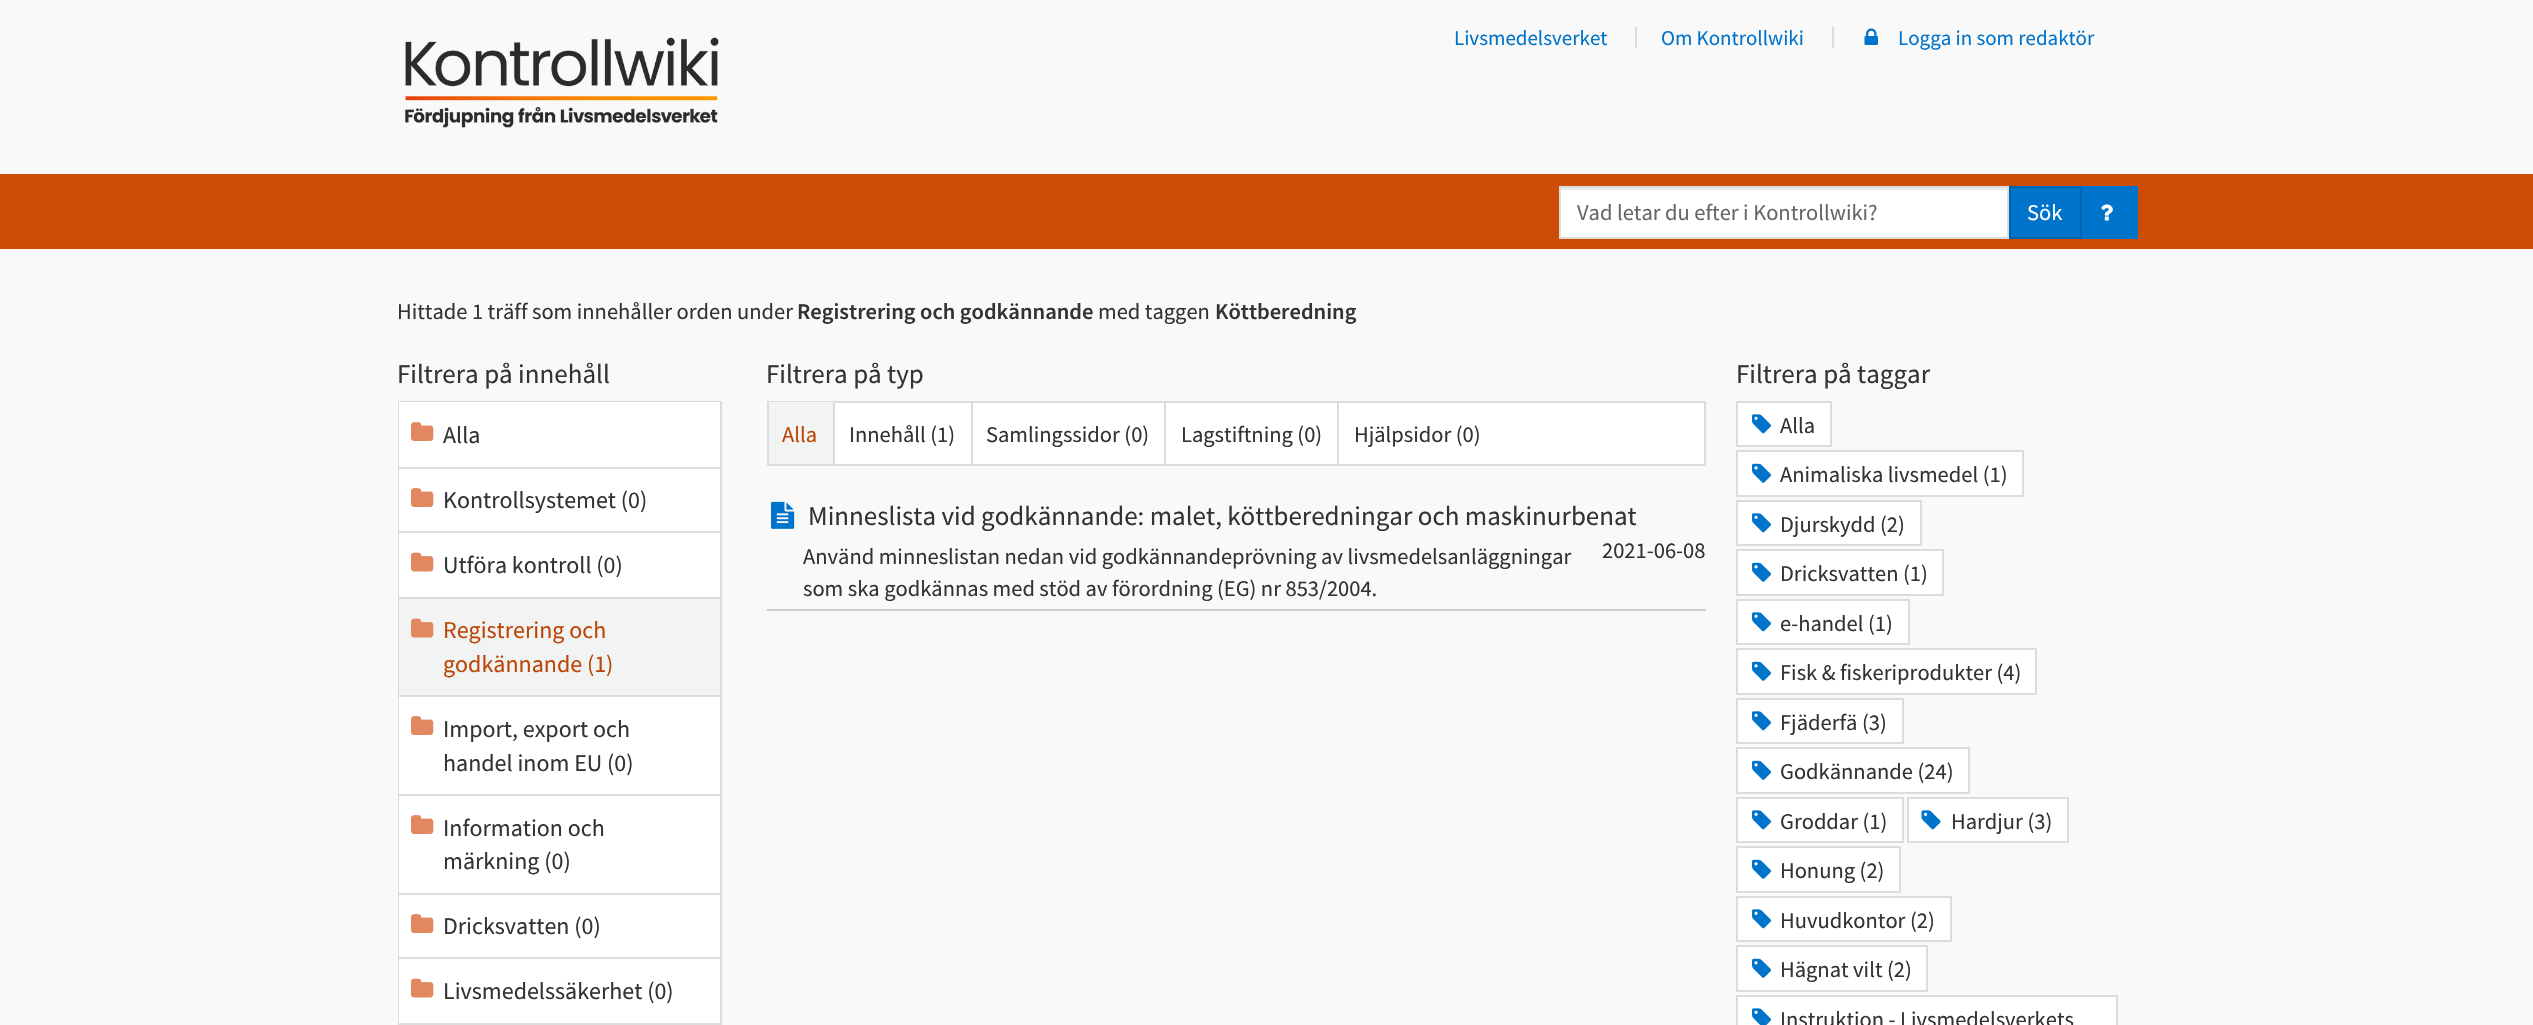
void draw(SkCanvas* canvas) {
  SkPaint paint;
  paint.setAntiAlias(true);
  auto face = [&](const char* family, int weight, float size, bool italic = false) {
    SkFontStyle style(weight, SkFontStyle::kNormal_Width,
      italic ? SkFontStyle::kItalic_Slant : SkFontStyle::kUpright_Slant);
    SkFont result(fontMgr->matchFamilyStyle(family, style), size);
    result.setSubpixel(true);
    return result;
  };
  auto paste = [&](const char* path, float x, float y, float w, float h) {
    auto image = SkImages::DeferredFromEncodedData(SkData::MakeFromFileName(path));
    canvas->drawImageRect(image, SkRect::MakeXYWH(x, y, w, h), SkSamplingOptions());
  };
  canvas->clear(0xfff9f9f9);
  paste("img/1.png", 405, 37, 314, 91);
  paint.setColor(0xffdbdcdc);
  canvas->drawRect(SkRect::MakeXYWH(1635, 27, 2, 21), paint);
  canvas->drawRect(SkRect::MakeXYWH(1832, 27, 2, 21), paint);
  paste("img/2.png", 1864, 28, 14, 17);
  {
    const struct { float x, y, w, h; SkColor color; } items[] = {
      {0, 174, 2533, 75, 0xffcd4c06},
      {1561, 190, 446, 47, 0xffffffff},
      {1560, 188, 447, 2, 0xffececec},
    };
    for (auto [x, y, w, h, color] : items) {
      paint.setColor(color);
      canvas->drawRect(SkRect::MakeXYWH(x, y, w, h), paint);
    }
  }
  paint.setStroke(true);
  paint.setStrokeWidth(2);
  paint.setColor(0xffdbdcdc);
  canvas->drawRect(SkRect::MakeXYWH(1560, 187, 448, 51), paint);
  paint.setStroke(false);
  paint.setColor(0xff0073ca);
  canvas->drawRect(SkRect::MakeXYWH(2010, 187, 71, 51), paint);
  paint.setStroke(true);
  paint.setColor(0xff0064b1);
  canvas->drawRect(SkRect::MakeXYWH(2010, 187, 71, 51), paint);
  paint.setStroke(false);
  paint.setColor(0xff0073ca);
  canvas->drawRect(SkRect::MakeXYWH(2082, 186, 56, 53), paint);
  paste("img/3.png", 2101, 204, 12, 17);
  paint.setStroke(true);
  paint.setColor(0xffdbdcdc);
  canvas->drawRect(SkRect::MakeXYWH(399, 402, 322, 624), paint);
  paint.setStroke(false);
  paint.setColor(0xffffffff);
  canvas->drawRect(SkRect::MakeXYWH(399, 402, 321, 621), paint);
  paint.setColor(0xffdbdcdc);
  canvas->drawRect(SkRect::MakeXYWH(399, 467, 321, 2), paint);
  paste("img/4.png", 411, 422, 23, 19);
  canvas->drawRect(SkRect::MakeXYWH(399, 531, 321, 2), paint);
  paste("img/4.png", 411, 488, 23, 19);
  canvas->drawRect(SkRect::MakeXYWH(399, 597, 321, 2), paint);
  paste("img/5.png", 411, 552, 23, 20);
  paint.setColor(0xfff2f3f3);
  canvas->drawRect(SkRect::MakeXYWH(399, 599, 321, 96), paint);
  paint.setColor(0xffdbdcdc);
  canvas->drawRect(SkRect::MakeXYWH(399, 695, 321, 2), paint);
  paste("img/6.png", 411, 618, 23, 20);
  canvas->drawRect(SkRect::MakeXYWH(399, 794, 321, 2), paint);
  paste("img/4.png", 411, 716, 23, 19);
  canvas->drawRect(SkRect::MakeXYWH(399, 893, 321, 2), paint);
  paste("img/4.png", 411, 815, 23, 19);
  canvas->drawRect(SkRect::MakeXYWH(399, 957, 321, 2), paint);
  paste("img/4.png", 411, 914, 23, 19);
  canvas->drawRect(SkRect::MakeXYWH(399, 1023, 321, 2), paint);
  paste("img/5.png", 411, 978, 23, 20);
  {
    const struct { float x, y, w, h; SkColor color; } items[] = {
      {835, 403, 869, 61, 0xffffffff},
      {767, 401, 939, 2, 0xffdbdcdc},
      {1704, 401, 2, 64, 0xffdbdcdc},
      {767, 464, 939, 2, 0xffdbdcdc},
      {769, 402, 64, 62, 0xfff2f3f3},
      {767, 402, 2, 62, 0xffdbdcdc},
      {833, 402, 2, 62, 0xffdbdcdc},
      {971, 402, 2, 62, 0xffdbdcdc},
      {1164, 402, 2, 62, 0xffdbdcdc},
      {1337, 402, 2, 62, 0xffdbdcdc},
      {767, 609, 939, 2, 0xffcccccc},
    };
    for (auto [x, y, w, h, color] : items) {
      paint.setColor(color);
      canvas->drawRect(SkRect::MakeXYWH(x, y, w, h), paint);
    }
  }
  paste("img/7.png", 771, 501, 24, 28);
  paint.setColor(0xffffffff);
  canvas->drawRect(SkRect::MakeXYWH(1737, 402, 94, 44), paint);
  paint.setStroke(true);
  paint.setColor(0xffdbdcdc);
  canvas->drawRect(SkRect::MakeXYWH(1737, 402, 94, 44), paint);
  paste("img/8.png", 1752, 414, 19, 20);
  paint.setStroke(false);
  paint.setColor(0xffffffff);
  canvas->drawRect(SkRect::MakeXYWH(1737, 451, 286, 45), paint);
  paint.setStroke(true);
  paint.setColor(0xffdbdcdc);
  canvas->drawRect(SkRect::MakeXYWH(1737, 451, 286, 45), paint);
  paste("img/9.png", 1752, 463, 19, 20);
  paint.setStroke(false);
  paint.setColor(0xffffffff);
  canvas->drawRect(SkRect::MakeXYWH(1737, 501, 184, 44), paint);
  paint.setStroke(true);
  paint.setColor(0xffdbdcdc);
  canvas->drawRect(SkRect::MakeXYWH(1737, 501, 184, 44), paint);
  paste("img/8.png", 1752, 513, 19, 20);
  paint.setStroke(false);
  paint.setColor(0xffffffff);
  canvas->drawRect(SkRect::MakeXYWH(1737, 550, 206, 45), paint);
  paint.setStroke(true);
  paint.setColor(0xffdbdcdc);
  canvas->drawRect(SkRect::MakeXYWH(1737, 550, 206, 45), paint);
  paste("img/9.png", 1752, 562, 19, 20);
  paint.setStroke(false);
  paint.setColor(0xffffffff);
  canvas->drawRect(SkRect::MakeXYWH(1737, 600, 172, 44), paint);
  paint.setStroke(true);
  paint.setColor(0xffdbdcdc);
  canvas->drawRect(SkRect::MakeXYWH(1737, 600, 172, 44), paint);
  paste("img/8.png", 1752, 612, 19, 20);
  paint.setStroke(false);
  paint.setColor(0xffffffff);
  canvas->drawRect(SkRect::MakeXYWH(1737, 649, 299, 45), paint);
  paint.setStroke(true);
  paint.setColor(0xffdbdcdc);
  canvas->drawRect(SkRect::MakeXYWH(1737, 649, 299, 45), paint);
  paste("img/9.png", 1752, 661, 19, 20);
  paint.setStroke(false);
  paint.setColor(0xffffffff);
  canvas->drawRect(SkRect::MakeXYWH(1737, 699, 166, 44), paint);
  paint.setStroke(true);
  paint.setColor(0xffdbdcdc);
  canvas->drawRect(SkRect::MakeXYWH(1737, 699, 166, 44), paint);
  paste("img/8.png", 1752, 711, 19, 20);
  paint.setStroke(false);
  paint.setColor(0xffffffff);
  canvas->drawRect(SkRect::MakeXYWH(1737, 748, 232, 45), paint);
  paint.setStroke(true);
  paint.setColor(0xffdbdcdc);
  canvas->drawRect(SkRect::MakeXYWH(1737, 748, 232, 45), paint);
  paste("img/9.png", 1752, 760, 19, 20);
  paint.setStroke(false);
  paint.setColor(0xffffffff);
  canvas->drawRect(SkRect::MakeXYWH(1737, 798, 166, 44), paint);
  paint.setStroke(true);
  paint.setColor(0xffdbdcdc);
  canvas->drawRect(SkRect::MakeXYWH(1737, 798, 166, 44), paint);
  paste("img/8.png", 1752, 810, 19, 20);
  paint.setStroke(false);
  paint.setColor(0xffffffff);
  canvas->drawRect(SkRect::MakeXYWH(1908, 798, 160, 44), paint);
  paint.setStroke(true);
  paint.setColor(0xffdbdcdc);
  canvas->drawRect(SkRect::MakeXYWH(1908, 798, 160, 44), paint);
  paste("img/10.png", 1921, 810, 20, 20);
  paint.setStroke(false);
  paint.setColor(0xffffffff);
  canvas->drawRect(SkRect::MakeXYWH(1737, 847, 163, 45), paint);
  paint.setStroke(true);
  paint.setColor(0xffdbdcdc);
  canvas->drawRect(SkRect::MakeXYWH(1737, 847, 163, 45), paint);
  paste("img/9.png", 1752, 859, 19, 20);
  paint.setStroke(false);
  paint.setColor(0xffffffff);
  canvas->drawRect(SkRect::MakeXYWH(1737, 897, 214, 44), paint);
  paint.setStroke(true);
  paint.setColor(0xffdbdcdc);
  canvas->drawRect(SkRect::MakeXYWH(1737, 897, 214, 44), paint);
  paste("img/8.png", 1752, 909, 19, 20);
  paint.setStroke(false);
  paint.setColor(0xffffffff);
  canvas->drawRect(SkRect::MakeXYWH(1737, 946, 190, 45), paint);
  paint.setStroke(true);
  paint.setColor(0xffdbdcdc);
  canvas->drawRect(SkRect::MakeXYWH(1737, 946, 190, 45), paint);
  paste("img/9.png", 1752, 958, 19, 20);
  paint.setStroke(false);
  paint.setColor(0xffffffff);
  canvas->drawRect(SkRect::MakeXYWH(1737, 996, 380, 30), paint);
  paint.setStroke(true);
  paint.setColor(0xffdbdcdc);
  canvas->drawRect(SkRect::MakeXYWH(1737, 996, 380, 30), paint);
  paste("img/11.png", 1752, 1008, 19, 17);
  auto f0 = face("Source Sans Pro", 400, 21);
  paint.setStroke(false);
  paint.setColor(0xff0073ca);
  {
    const struct { const char* s; float x, y; } items[] = {
      {"Livsmedelsverket", 1454, 45},
      {"Om Kontrollwiki", 1661, 45},
      {"Logga in som redaktör", 1898, 45},
    };
    for (auto [s, x, y] : items) {
      canvas->drawString(s, x, y, f0, paint);
    }
  }
  auto f1 = face("Source Sans Pro", 400, 22.5f);
  paint.setColor(0xff666666);
  canvas->drawString("Vad letar du efter i Kontrollwiki?", 1577, 220, f1, paint);
  paint.setColor(0xffffffff);
  canvas->drawString("Sök", 2027, 220, f1, paint);
  paint.setColor(0xff333333);
  canvas->drawString("Hittade 1 träff som innehåller orden under", 397, 319, f1, paint);
  auto f2 = face("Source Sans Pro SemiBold", 600, 22.5f);
  canvas->drawString("Registrering och godkännande", 797, 319, f2, paint);
  canvas->drawString("med taggen", 1098, 319, f1, paint);
  canvas->drawString("Köttberedning", 1215, 319, f2, paint);
  auto f3 = face("Source Sans Pro", 400, 27);
  canvas->drawString("Filtrera på innehåll", 397, 383, f3, paint);
  auto f4 = face("Source Sans Pro", 400, 24);
  {
    const struct { const char* s; float x, y; } items[] = {
      {"Alla", 443, 443},
      {"Kontrollsystemet (0)", 443, 508},
      {"Utföra kontroll (0)", 443, 573},
    };
    for (auto [s, x, y] : items) {
      canvas->drawString(s, x, y, f4, paint);
    }
  }
  paint.setColor(0xffbd4606);
  canvas->drawString("Registrering och", 443, 638, f4, paint);
  canvas->drawString("godkännande (1)", 443, 672, f4, paint);
  paint.setColor(0xff333333);
  {
    const struct { const char* s; float x, y; } items[] = {
      {"Import, export och", 443, 737},
      {"handel inom EU (0)", 443, 771},
      {"Information och", 443, 836},
      {"märkning (0)", 443, 869},
      {"Dricksvatten (0)", 443, 934},
      {"Livsmedelssäkerhet (0)", 443, 999},
    };
    for (auto [s, x, y] : items) {
      canvas->drawString(s, x, y, f4, paint);
    }
  }
  canvas->drawString("Filtrera på typ", 766, 383, f3, paint);
  paint.setColor(0xffbd4606);
  canvas->drawString("Alla", 782, 442, f1, paint);
  paint.setColor(0xff333333);
  {
    const struct { const char* s; float x, y; } items[] = {
      {"Innehåll (1)", 849, 442},
      {"Samlingssidor (0)", 986, 442},
      {"Lagstiftning (0)", 1181, 442},
      {"Hjälpsidor (0)", 1354, 442},
    };
    for (auto [s, x, y] : items) {
      canvas->drawString(s, x, y, f1, paint);
    }
  }
  canvas->drawString("Minneslista vid godkännande: malet, köttberedningar och maskinurbenat", 808, 525, f3, paint);
  {
    const struct { const char* s; float x, y; } items[] = {
      {"Använd minneslistan nedan vid godkännandeprövning av livsmedelsanläggningar", 803, 564},
      {"som ska godkännas med stöd av förordning (EG) nr 853/2004.", 803, 596},
      {"2021-06-08", 1602, 558},
    };
    for (auto [s, x, y] : items) {
      canvas->drawString(s, x, y, f1, paint);
    }
  }
  canvas->drawString("Filtrera på taggar", 1736, 383, f3, paint);
  {
    const struct { const char* s; float x, y; } items[] = {
      {"Alla", 1780, 433},
      {"Animaliska livsmedel (1)", 1780, 482},
      {"Djurskydd (2)", 1780, 532},
      {"Dricksvatten (1)", 1780, 581},
      {"e-handel (1)", 1780, 631},
      {"Fisk & fiskeriprodukter (4)", 1780, 680},
      {"Fjäderfä (3)", 1780, 730},
      {"Godkännande (24)", 1780, 779},
      {"Groddar (1)", 1780, 829},
      {"Hardjur (3)", 1951, 829},
      {"Honung (2)", 1780, 878},
      {"Huvudkontor (2)", 1780, 928},
      {"Hägnat vilt (2)", 1780, 977},
      {"Instruktion - Livsmedelsverkets", 1780, 1027},
    };
    for (auto [s, x, y] : items) {
      canvas->drawString(s, x, y, f1, paint);
    }
  }
}
